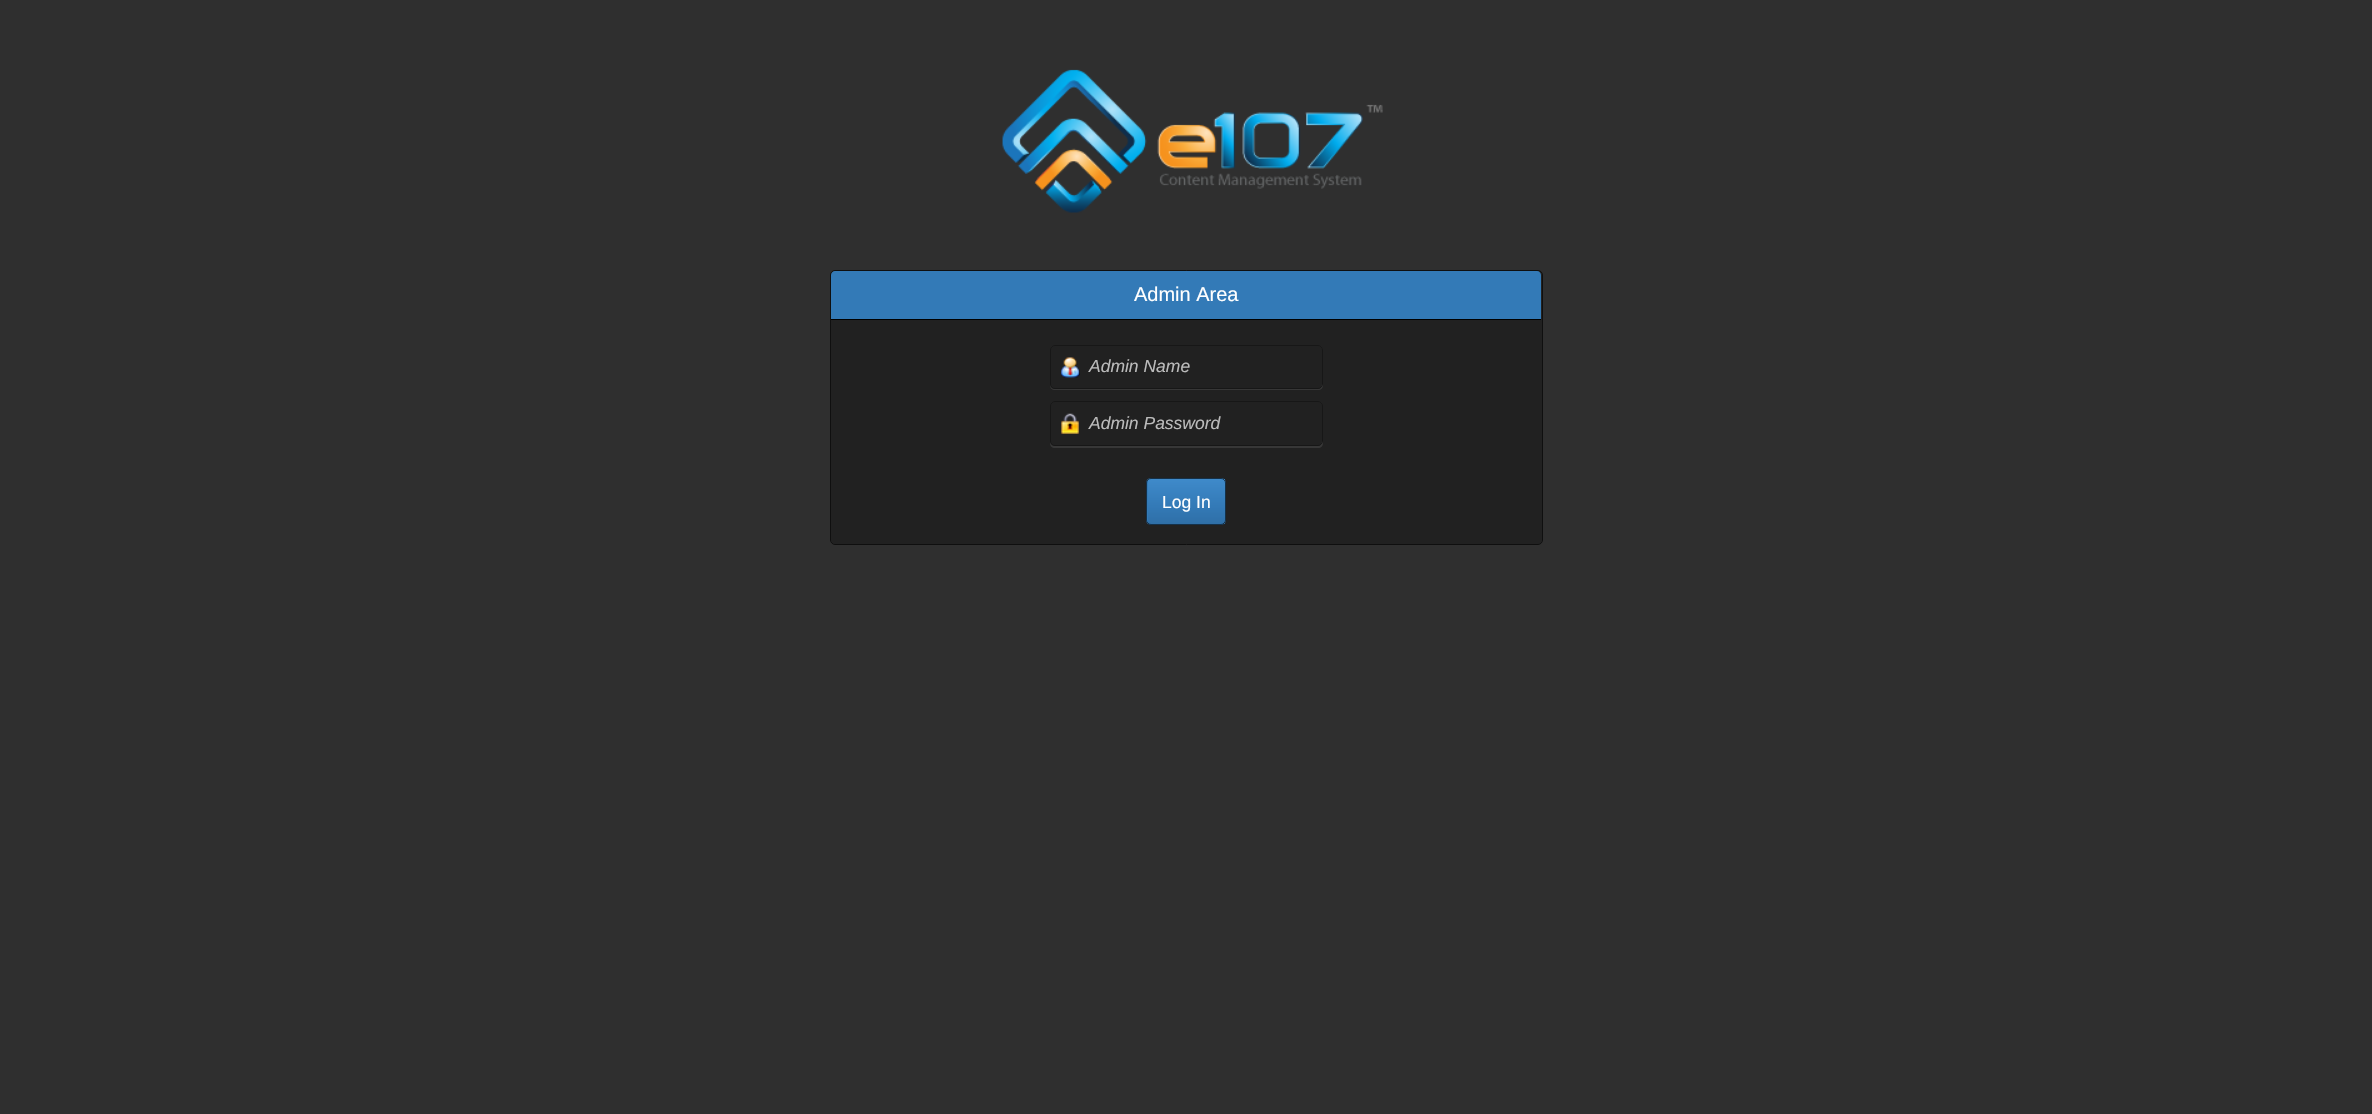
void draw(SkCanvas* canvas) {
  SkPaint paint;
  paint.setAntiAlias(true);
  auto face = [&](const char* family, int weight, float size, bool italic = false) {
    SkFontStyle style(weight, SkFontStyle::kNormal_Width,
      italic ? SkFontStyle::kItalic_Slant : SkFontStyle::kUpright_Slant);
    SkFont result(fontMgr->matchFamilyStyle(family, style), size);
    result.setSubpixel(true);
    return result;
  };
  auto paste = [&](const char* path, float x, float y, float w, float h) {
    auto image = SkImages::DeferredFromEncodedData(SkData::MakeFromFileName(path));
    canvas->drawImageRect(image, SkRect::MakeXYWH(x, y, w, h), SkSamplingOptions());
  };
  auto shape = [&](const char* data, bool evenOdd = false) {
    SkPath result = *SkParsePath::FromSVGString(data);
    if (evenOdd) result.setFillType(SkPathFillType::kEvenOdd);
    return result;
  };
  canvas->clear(0xff2f2f2f);
  paste("img/1.png", 1002, 69, 381, 144);
  paint.setColor(0xff212121);
  canvas->drawRoundRect(SkRect::MakeXYWH(830.5f, 270.5f, 712, 274), 4.5f, 4.5f, paint);
  paint.setStroke(true);
  paint.setStrokeWidth(1);
  paint.setColor(0xff0f0f0f);
  canvas->drawRoundRect(SkRect::MakeXYWH(830.5f, 270.5f, 712, 274), 4.5f, 4.5f, paint);
  paint.setStroke(false);
  paint.setColor(0xff337ab7);
  canvas->drawPath(shape("M835 271H1537C1539 271 1541 273 1541 275V320H831V275C831 273 833 271 835 271Z"), paint);
  paint.setColor(0xff000000);
  canvas->drawRect(SkRect::MakeXYWH(831, 319, 710, 1), paint);
  paint.setColor(0xff373737);
  canvas->drawPath(shape("M1050 384V385C1050 388 1052 390 1055 390H1318C1321 390 1323 388 1323 385V351L1322 348V384C1322 387 1320 389 1318 389H1055C1052 389 1050 387 1050 384Z"), paint);
  paste("img/2.png", 1061, 357, 19, 21);
  paint.setStroke(true);
  paint.setColor(0xff171717);
  canvas->drawRoundRect(SkRect::MakeXYWH(1050.5f, 345.5f, 272, 43), 4.5f, 4.5f, paint);
  paint.setStroke(false);
  paint.setColor(0xff373737);
  canvas->drawPath(shape("M1050 441V443C1050 446 1052 448 1055 448H1318C1321 448 1323 446 1323 443V408L1322 406V441C1322 444 1320 446 1318 446H1055C1052 446 1050 444 1050 441Z"), paint);
  paste("img/3.png", 1061, 413, 18, 21);
  paint.setStroke(true);
  paint.setColor(0xff171717);
  canvas->drawRoundRect(SkRect::MakeXYWH(1050.5f, 401.5f, 272, 44), 4.5f, 4.5f, paint);
  paint.setStroke(false);
  paint.setColor(0xff337ab7);
  canvas->drawRoundRect(SkRect::MakeXYWH(1146, 478, 80, 47), 5, 5, paint);
  {
    const SkColor colors[] = {0xff3f8aca, 0xff337ab7, 0xff2f6fa7};
    const float stops[] = {0, 0.6f, 1};
    const SkPoint ends[] = {{1186, 479}, {1186, 524}};
    paint.setShader(SkGradientShader::MakeLinear(ends, colors, stops, 3, SkTileMode::kClamp));
    paint.setAlpha(255);
  }
  canvas->drawRect(SkRect::MakeXYWH(1148, 479, 77, 45), paint);
  paint.setStroke(true);
  paint.setShader(nullptr);
  paint.setColor(0x99000000);
  canvas->drawRoundRect(SkRect::MakeXYWH(1146.5f, 478.5f, 79, 46), 4.5f, 4.5f, paint);
  auto f0 = face("Liberation Sans", 400, 20);
  paint.setStroke(false);
  paint.setColor(0xffffffff);
  canvas->drawString("Admin Area", 1134, 301, f0, paint);
  auto f1 = face("Liberation Sans", 400, 17.5f, true);
  paint.setColor(0xffbbbbbb);
  canvas->drawString("Admin Name", 1089, 372, f1, paint);
  canvas->drawString("Admin Password", 1089, 429, f1, paint);
  auto f2 = face("Liberation Sans", 400, 17.5f);
  paint.setColor(0xffffffff);
  canvas->drawString("Log In", 1162, 508, f2, paint);
}
